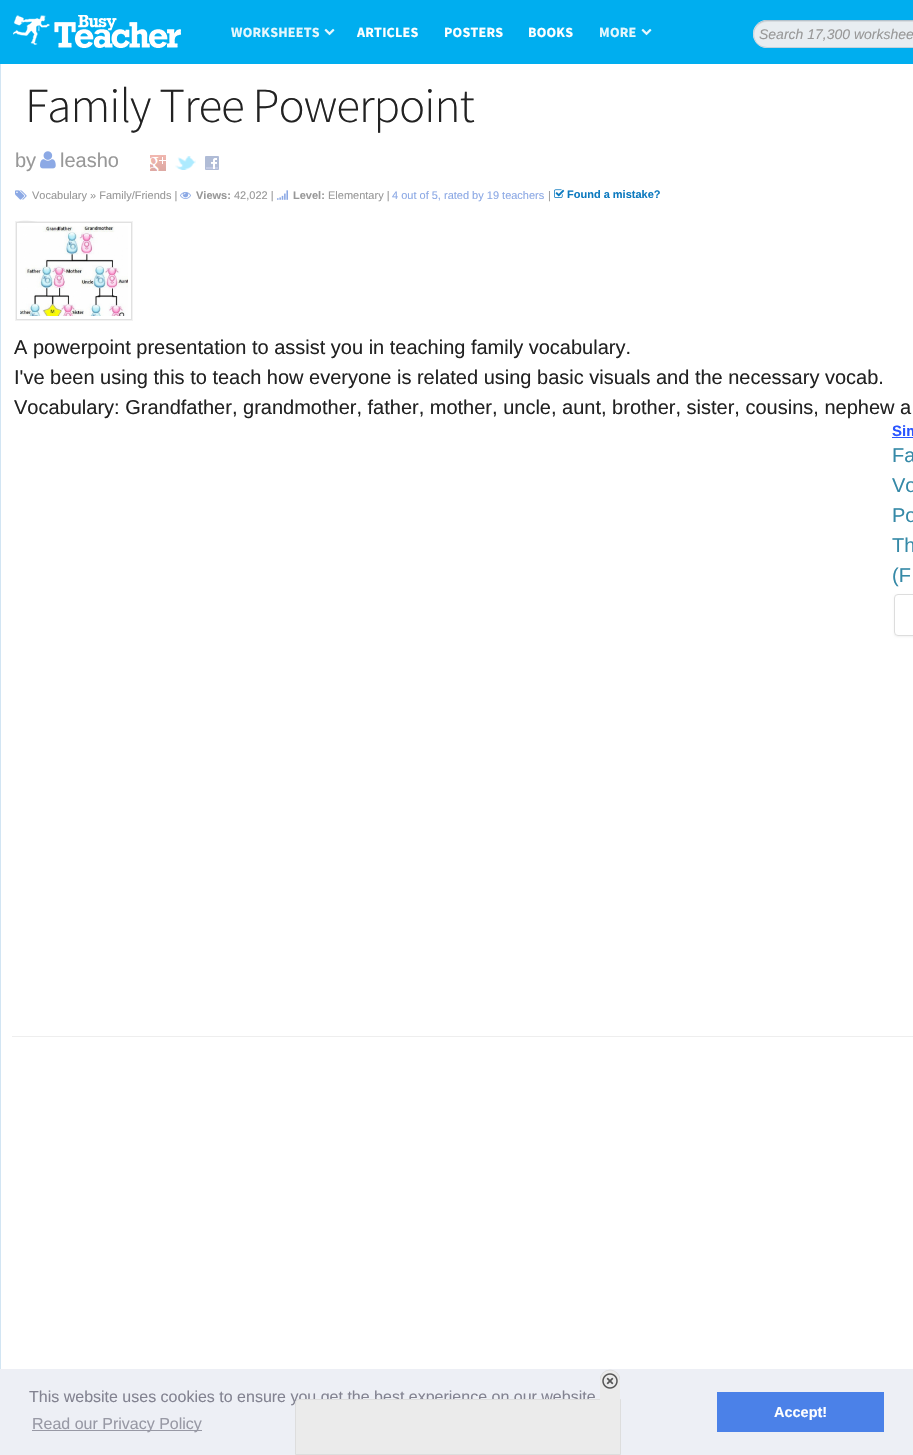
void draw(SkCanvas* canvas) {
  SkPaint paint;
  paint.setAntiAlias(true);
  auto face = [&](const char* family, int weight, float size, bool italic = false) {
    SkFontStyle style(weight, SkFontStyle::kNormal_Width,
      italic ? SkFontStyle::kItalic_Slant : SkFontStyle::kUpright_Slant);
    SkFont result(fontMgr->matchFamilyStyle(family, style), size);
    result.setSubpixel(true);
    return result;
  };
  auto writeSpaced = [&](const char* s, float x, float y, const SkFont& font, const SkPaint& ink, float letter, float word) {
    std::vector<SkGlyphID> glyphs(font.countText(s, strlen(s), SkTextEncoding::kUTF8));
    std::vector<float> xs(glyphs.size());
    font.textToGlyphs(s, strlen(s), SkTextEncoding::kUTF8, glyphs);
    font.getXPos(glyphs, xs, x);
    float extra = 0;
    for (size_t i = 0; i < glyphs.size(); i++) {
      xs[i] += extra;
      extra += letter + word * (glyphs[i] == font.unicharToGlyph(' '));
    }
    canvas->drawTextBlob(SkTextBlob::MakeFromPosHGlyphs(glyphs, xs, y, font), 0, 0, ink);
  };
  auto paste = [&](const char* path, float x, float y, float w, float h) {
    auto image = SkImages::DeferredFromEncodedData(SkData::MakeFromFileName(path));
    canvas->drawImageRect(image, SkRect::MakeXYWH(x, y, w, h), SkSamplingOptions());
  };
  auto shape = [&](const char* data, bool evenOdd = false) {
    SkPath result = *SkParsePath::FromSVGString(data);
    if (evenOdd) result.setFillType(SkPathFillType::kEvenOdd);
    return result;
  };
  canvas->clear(0xffffffff);
  paint.setStroke(true);
  paint.setStrokeWidth(1);
  paint.setColor(0xffd2e5f3);
  canvas->drawRect(SkRect::MakeXYWH(0.5f, -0.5f, 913, 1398), paint);
  paint.setStroke(false);
  paint.setColor(0xff00aeef);
  canvas->drawRect(SkRect::MakeXYWH(0, 0, 913, 64), paint);
  paste("img/1.png", 13, 15, 168, 33);
  paste("img/2.png", 324, 28, 11, 8);
  paste("img/2.png", 641, 28, 11, 8);
  paint.setColor(0xffe8edf1);
  canvas->drawRoundRect(SkRect::MakeXYWH(753, 20, 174, 28), 14, 14, paint);
  paint.setStroke(true);
  paint.setColor(0xffb4c1cb);
  canvas->drawPath(shape("M757.5 24.5C760 22 763.5 20.5 767 20.5H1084C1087.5 20.5 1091 22 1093.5 24.5"), paint);
  paint.setColor(0xffc6d2db);
  canvas->drawPath(shape("M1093.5 24.5C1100 31 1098 43 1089 46.5L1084 47.5H767L762 46.5C753 43 751 31 757.5 24.5"), paint);
  paint.setStroke(false);
  paint.setColor(0x12000000);
  canvas->drawPath(shape("M767 22C760 22 754 28 754 35V34C754 27 760 21 767 21H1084L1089 22Z"), paint);
  paste("img/3.png", 40, 151, 16, 18);
  paste("img/4.png", 150, 155, 16, 16);
  paste("img/5.png", 175, 156, 21, 14);
  paste("img/6.png", 205, 156, 14, 14);
  paste("img/7.png", 15, 190, 12, 10);
  paste("img/8.png", 180, 191, 11, 8);
  paste("img/9.png", 277, 190, 11, 10);
  paste("img/10.png", 554, 189, 11, 9);
  paint.setColor(0xfff2f2f2);
  canvas->drawPath(shape("M19 223H129C131 223 132 224 132 226C132 224 131 222 129 222H37C36 222 16 217 16 226C16 224 17 223 19 223Z"), paint);
  paint.setStroke(true);
  paint.setColor(0x0d000000);
  canvas->drawRect(SkRect::MakeXYWH(15.5f, 221.5f, 117, 99), paint);
  paint.setStroke(false);
  paint.setColor(0xffffffff);
  canvas->drawRect(SkRect::MakeXYWH(17, 223, 114, 1), paint);
  paint.setStroke(true);
  paint.setColor(0xffe1e1e1);
  canvas->drawRect(SkRect::MakeXYWH(16.5f, 222.5f, 115, 97), paint);
  paste("img/11.png", 20, 226, 108, 90);
  paint.setStroke(false);
  paint.setColor(0xff2a55ff);
  canvas->drawRect(SkRect::MakeXYWH(892, 437, 21, 1), paint);
  paint.setColor(0x0d000000);
  paint.setMaskFilter(SkMaskFilter::MakeBlur(kNormal_SkBlurStyle, 1));
  canvas->drawRoundRect(SkRect::MakeXYWH(894, 595, 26, 42), 4, 4, paint);
  paint.setMaskFilter(nullptr);
  paint.setColor(0xffffffff);
  canvas->drawPath(shape("M898 594H913V636H898C896 636 894 634 894 632V598C894 596 896 594 898 594Z"), paint);
  paint.setStroke(true);
  paint.setColor(0xffdddddd);
  canvas->drawRoundRect(SkRect::MakeXYWH(894.5f, 594.5f, 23, 41), 3.5f, 3.5f, paint);
  paint.setStroke(false);
  paint.setColor(0xffeeeeee);
  canvas->drawRect(SkRect::MakeXYWH(12, 1036, 901, 1), paint);
  paint.setColor(0xffedeff5);
  canvas->drawRect(SkRect::MakeXYWH(0, 1369, 913, 86), paint);
  paint.setColor(0xffebebeb);
  canvas->drawCircle(610, 1380, 10, paint);
  canvas->save();
  canvas->clipRect(SkRect::MakeXYWH(600, 1360, 20, 40));
  paint.setStroke(true);
  paint.setStrokeWidth(0.5f);
  paint.setColor(0xffcccccc);
  canvas->drawCircle(610, 1380, 10, paint);
  canvas->restore();
  paint.setStroke(false);
  paint.setColor(0xff9899a5);
  canvas->drawRect(SkRect::MakeXYWH(32, 1430, 170, 1), paint);
  paint.setColor(0xff4b81e8);
  canvas->drawRect(SkRect::MakeXYWH(717, 1392, 167, 40), paint);
  auto f0 = face("Source Sans Pro", 700, 14);
  paint.setColor(0xffe6f7fd);
  writeSpaced("WORKSHEETS", 231, 37, f0, paint, 0.25f, 0);
  paint.setColor(0xffffffff);
  {
    const struct { const char* s; float x, y; } items[] = {
      {"ARTICLES", 357, 37},
      {"POSTERS", 444, 37},
      {"BOOKS", 528, 37},
    };
    for (auto [s, x, y] : items) {
      writeSpaced(s, x, y, f0, paint, 0.25f, 0);
    }
  }
  paint.setColor(0xffe6f7fd);
  writeSpaced("MORE", 599, 37, f0, paint, 0.25f, 0);
  auto f1 = face("Liberation Sans", 400, 14, true);
  paint.setColor(0xff989898);
  canvas->drawString("Search 17,300 workshee", 759, 39, f1, paint);
  auto f2 = face("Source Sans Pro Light", 300, 49);
  paint.setColor(0xff222222);
  writeSpaced("Family Tree Powerpoint", 25, 122, f2, paint, -1, 0);
  auto f3 = face("Liberation Sans", 400, 20);
  paint.setColor(0xff989898);
  canvas->drawString("by", 15, 167, f3, paint);
  canvas->drawString("leasho", 60, 167, f3, paint);
  auto f4 = face("Liberation Sans", 400, 11);
  canvas->drawString("Vocabulary » Family/Friends |", 32, 199, f4, paint);
  auto f5 = face("Liberation Sans", 700, 11);
  canvas->drawString("Views:", 196, 199, f5, paint);
  canvas->drawString("42,022 |", 234, 199, f4, paint);
  canvas->drawString("Level:", 293, 199, f5, paint);
  canvas->drawString("Elementary |", 328, 199, f4, paint);
  paint.setColor(0xff8ca9e5);
  canvas->drawString("4 out of 5, rated by 19 teachers", 392, 199, f4, paint);
  paint.setColor(0xff989898);
  canvas->drawString("|", 548, 199, f4, paint);
  paint.setColor(0xff0d7abf);
  canvas->drawString("Found a mistake?", 567, 198, f5, paint);
  paint.setColor(0xff222222);
  {
    const struct { const char* s; float x, y; } items[] = {
      {"A powerpoint presentation to assist you in teaching family vocabulary.", 14, 354},
      {"I've been using this to teach how everyone is related using basic visuals and the necessary vocab.", 14, 384},
      {"Vocabulary: Grandfather, grandmother, father, mother, uncle, aunt, brother, sister, cousins, nephew a", 14, 414},
    };
    for (auto [s, x, y] : items) {
      canvas->drawString(s, x, y, f3, paint);
    }
  }
  auto f6 = face("Liberation Sans", 700, 15);
  paint.setColor(0xff2a55ff);
  canvas->drawString("Sim", 892, 436, f6, paint);
  paint.setColor(0xff3589a7);
  {
    const struct { const char* s; float x, y; } items[] = {
      {"Fa", 892, 462},
      {"Vo", 892, 492},
      {"Po", 892, 522},
      {"Th", 892, 552},
      {"(F", 892, 582},
    };
    for (auto [s, x, y] : items) {
      canvas->drawString(s, x, y, f3, paint);
    }
  }
  auto f7 = face("Liberation Sans", 400, 16);
  paint.setColor(0xff838391);
  canvas->drawString("This website uses cookies to ensure you get the best experience on our website", 29, 1402, f7, paint);
  paint.setColor(0xffebebeb);
  canvas->drawPath(shape("M299 1399.5H620.5V1454.5H295.5V1403C295.5 1401 297 1399.5 299 1399.5Z"), paint);
  paint.setStroke(true);
  paint.setStrokeWidth(1);
  paint.setColor(0xffdddddd);
  canvas->drawPath(shape("M299 1399.5H620.5V1454.5H295.5V1403C295.5 1401 297 1399.5 299 1399.5Z"), paint);
  paint.setStroke(false);
  paint.setColor(0xffebebeb);
  canvas->drawRect(SkRect::MakeXYWH(600, 1380, 20, 20), paint);
  paste("img/12.png", 602, 1373, 16, 16);
  paint.setColor(0xff9899a5);
  canvas->drawString("Read our Privacy Policy", 32, 1429, f7, paint);
  auto f8 = face("Liberation Sans", 700, 14.5f);
  paint.setColor(0xffffffff);
  canvas->drawString("Accept!", 774, 1417, f8, paint);
}
